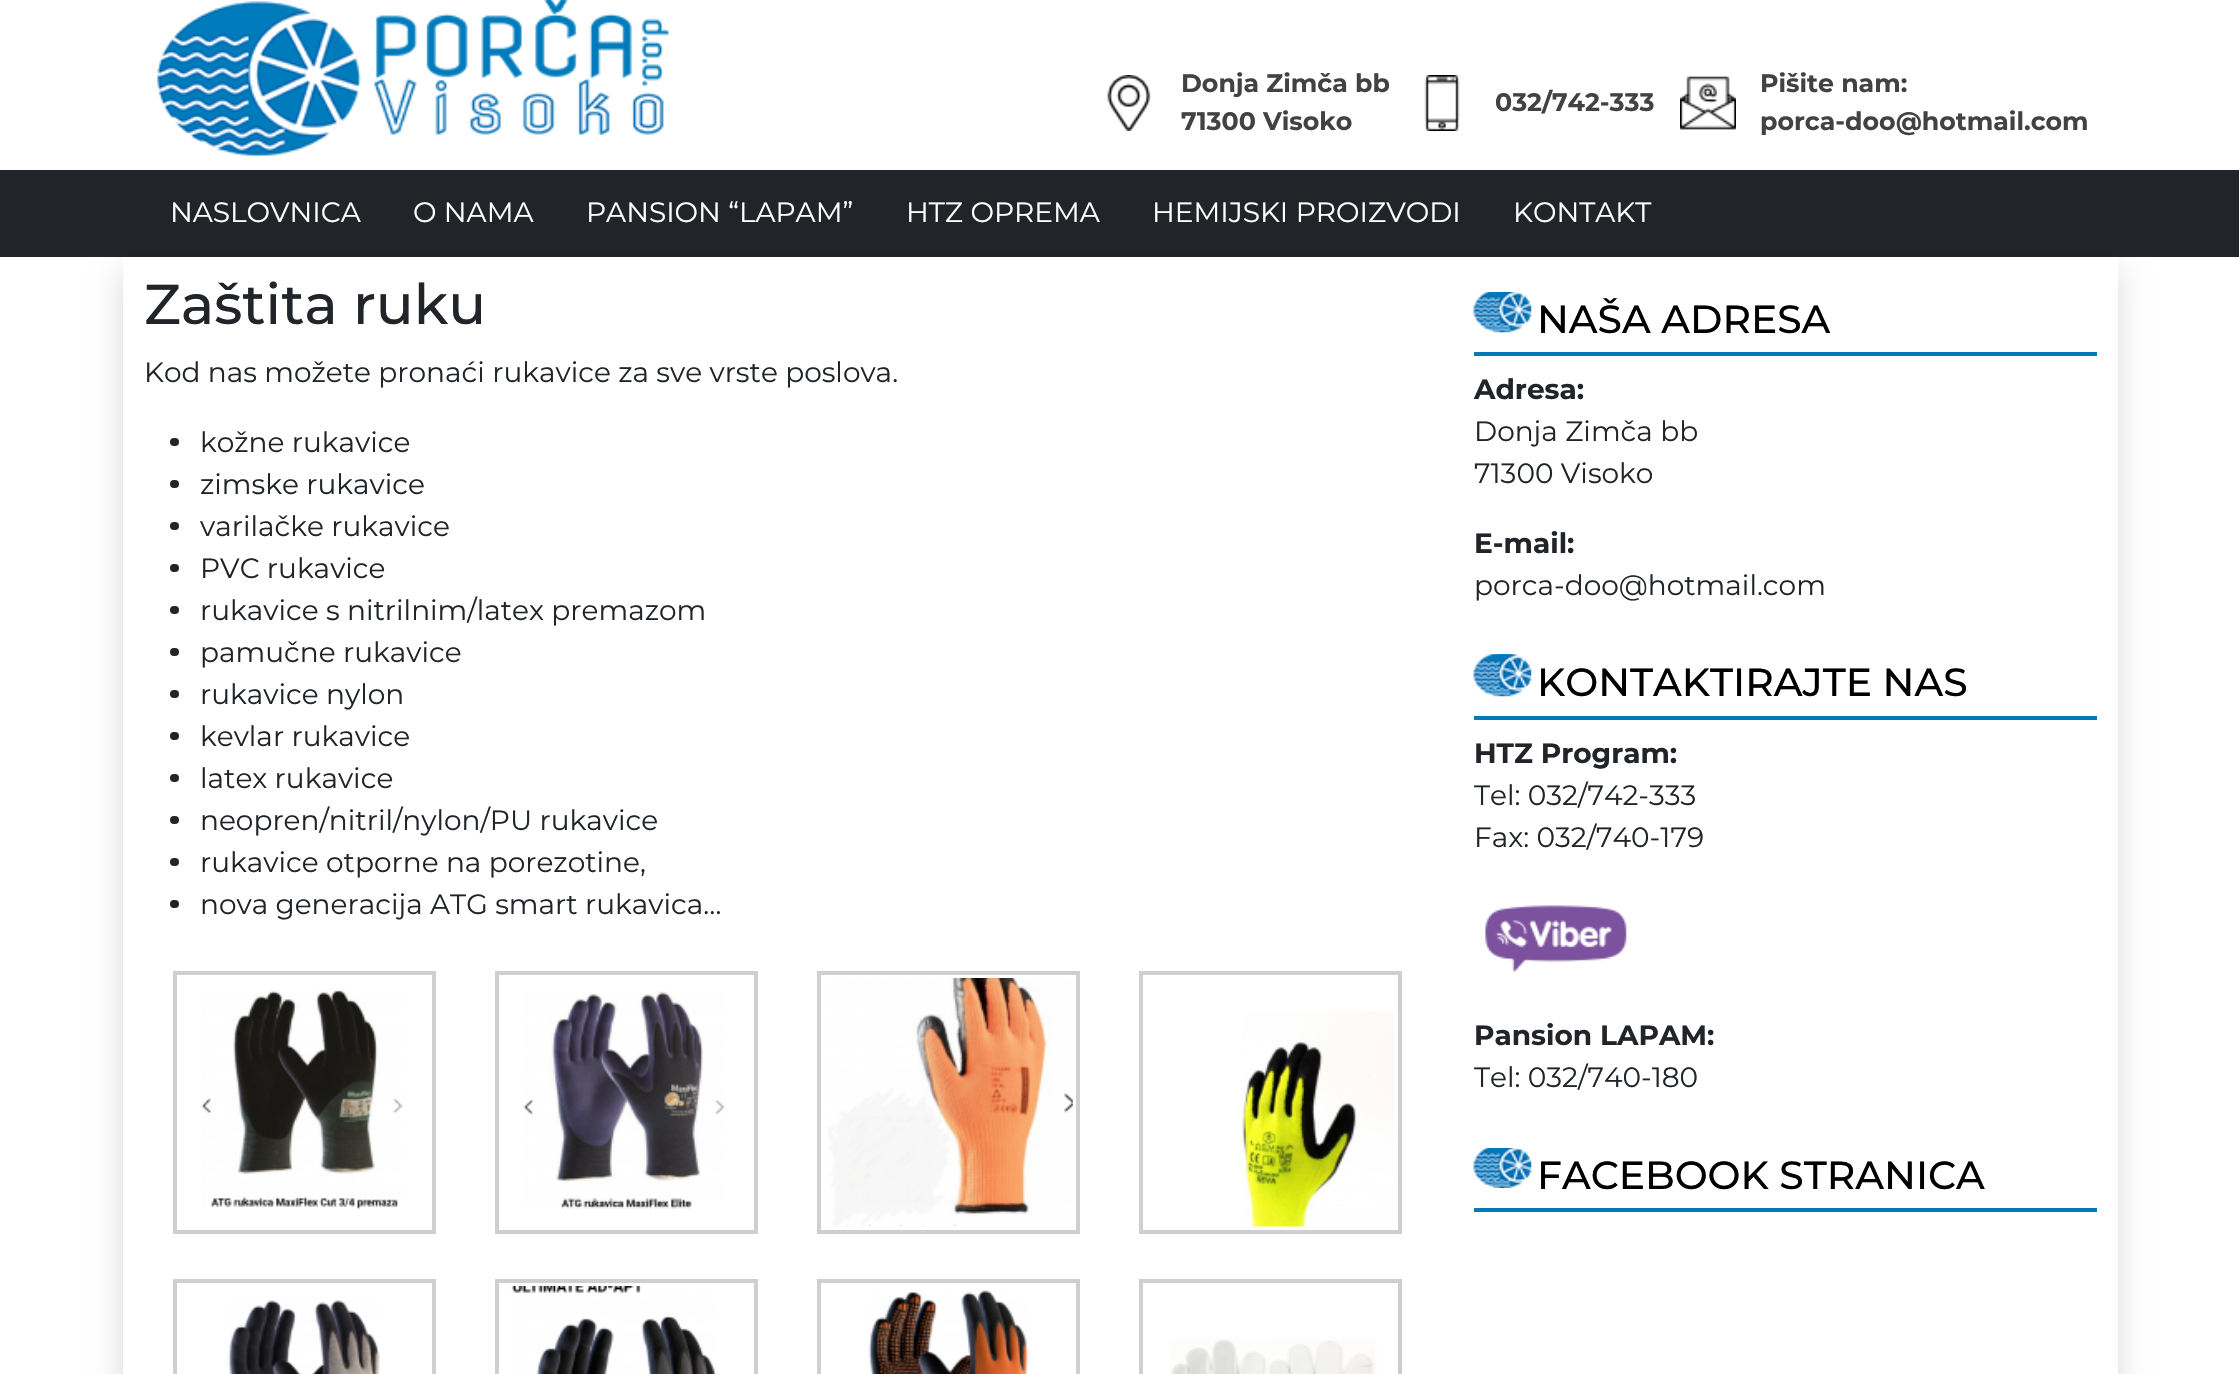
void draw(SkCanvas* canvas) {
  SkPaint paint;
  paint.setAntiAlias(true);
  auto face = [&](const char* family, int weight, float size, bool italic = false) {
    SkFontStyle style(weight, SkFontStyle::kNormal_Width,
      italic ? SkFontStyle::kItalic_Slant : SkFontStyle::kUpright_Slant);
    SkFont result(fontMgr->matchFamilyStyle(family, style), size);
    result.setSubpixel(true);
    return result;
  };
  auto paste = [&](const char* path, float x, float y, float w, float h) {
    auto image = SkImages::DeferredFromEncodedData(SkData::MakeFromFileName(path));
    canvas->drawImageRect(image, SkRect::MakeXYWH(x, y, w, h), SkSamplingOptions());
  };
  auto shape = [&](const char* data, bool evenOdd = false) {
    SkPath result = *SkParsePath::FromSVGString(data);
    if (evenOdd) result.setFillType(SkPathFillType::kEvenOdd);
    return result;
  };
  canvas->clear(0xffffffff);
  paste("img/1.png", 157, 0, 512, 156);
  paste("img/2.png", 1107, 75, 44, 56);
  paste("img/3.png", 1424, 75, 36, 56);
  paste("img/4.png", 1680, 76, 56, 54);
  paint.setColor(0xff212529);
  canvas->drawRect(SkRect::MakeXYWH(0, 170, 2239, 87), paint);
  canvas->save();
  canvas->clipPath(shape("M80 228H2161V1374H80ZM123 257H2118V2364H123Z", true), true);
  paint.setColor(0x26000000);
  paint.setMaskFilter(SkMaskFilter::MakeBlur(kNormal_SkBlurStyle, 14));
  canvas->drawRect(SkRect::MakeXYWH(123, 271, 1995, 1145), paint);
  paint.setMaskFilter(nullptr);
  canvas->restore();
  paint.setColor(0xff212529);
  canvas->drawRoundRect(SkRect::MakeXYWH(170, 438, 9, 8), 4, 4, paint);
  canvas->drawRoundRect(SkRect::MakeXYWH(170, 480, 9, 8), 4, 4, paint);
  canvas->drawRoundRect(SkRect::MakeXYWH(170, 522, 9, 8), 4, 4, paint);
  canvas->drawRoundRect(SkRect::MakeXYWH(170, 564, 9, 8), 4, 4, paint);
  canvas->drawRoundRect(SkRect::MakeXYWH(170, 606, 9, 8), 4, 4, paint);
  canvas->drawRoundRect(SkRect::MakeXYWH(170, 648, 9, 8), 4, 4, paint);
  canvas->drawRoundRect(SkRect::MakeXYWH(170, 690, 9, 8), 4, 4, paint);
  canvas->drawRoundRect(SkRect::MakeXYWH(170, 732, 9, 8), 4, 4, paint);
  canvas->drawRoundRect(SkRect::MakeXYWH(170, 774, 9, 8), 4, 4, paint);
  canvas->drawRoundRect(SkRect::MakeXYWH(170, 816, 9, 8), 4, 4, paint);
  canvas->drawRoundRect(SkRect::MakeXYWH(170, 858, 9, 8), 4, 4, paint);
  canvas->drawRoundRect(SkRect::MakeXYWH(170, 900, 9, 8), 4, 4, paint);
  paint.setStroke(true);
  paint.setStrokeWidth(4);
  paint.setColor(0xffcfcfcf);
  canvas->drawRect(SkRect::MakeXYWH(175, 973, 259, 259), paint);
  paste("img/5.png", 201, 989, 202, 220);
  canvas->drawRect(SkRect::MakeXYWH(497, 973, 259, 259), paint);
  paste("img/6.png", 523, 990, 202, 219);
  canvas->drawRect(SkRect::MakeXYWH(819, 973, 259, 259), paint);
  paste("img/7.png", 828, 978, 245, 249);
  canvas->drawRect(SkRect::MakeXYWH(1141, 973, 259, 259), paint);
  paste("img/8.png", 1242, 1011, 153, 216);
  canvas->drawRect(SkRect::MakeXYWH(175, 1281, 259, 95), paint);
  paste("img/9.png", 228, 1300, 152, 74);
  canvas->drawRect(SkRect::MakeXYWH(497, 1281, 259, 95), paint);
  paste("img/10.png", 511, 1286, 206, 88);
  canvas->drawRect(SkRect::MakeXYWH(819, 1281, 259, 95), paint);
  paste("img/11.png", 868, 1290, 161, 84);
  canvas->drawRect(SkRect::MakeXYWH(1141, 1281, 259, 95), paint);
  paste("img/12.png", 1170, 1338, 207, 36);
  paint.setStroke(false);
  paint.setColor(0xff007bbb);
  canvas->drawRect(SkRect::MakeXYWH(1474, 352, 623, 4), paint);
  paste("img/13.png", 1473, 292, 59, 41);
  canvas->drawRect(SkRect::MakeXYWH(1474, 716, 623, 4), paint);
  paste("img/14.png", 1473, 654, 59, 43);
  paste("img/15.png", 1485, 905, 142, 67);
  canvas->drawRect(SkRect::MakeXYWH(1474, 1208, 623, 4), paint);
  paste("img/16.png", 1473, 1148, 59, 40);
  auto f0 = face("Montserrat", 700, 25.25f);
  paint.setColor(0xff424242);
  {
    const struct { const char* s; float x, y; } items[] = {
      {"Donja Zimča bb", 1181, 92},
      {"71300 Visoko", 1181, 130},
      {"032/742-333", 1495, 111},
      {"Pišite nam:", 1760, 92},
      {"porca-doo@hotmail.com", 1760, 130},
    };
    for (auto [s, x, y] : items) {
      canvas->drawString(s, x, y, f0, paint);
    }
  }
  auto f1 = face("Montserrat", 400, 28);
  paint.setColor(0xffffffff);
  {
    const struct { const char* s; float x, y; } items[] = {
      {"NASLOVNICA", 170, 222},
      {"O NAMA", 413, 222},
      {"PANSION “LAPAM”", 586, 222},
      {"HTZ OPREMA", 906, 222},
      {"HEMIJSKI PROIZVODI", 1152, 222},
      {"KONTAKT", 1513, 222},
    };
    for (auto [s, x, y] : items) {
      canvas->drawString(s, x, y, f1, paint);
    }
  }
  auto f2 = face("Montserrat", 500, 56);
  paint.setColor(0xff212529);
  canvas->drawString("Zaštita ruku", 144, 324, f2, paint);
  {
    const struct { const char* s; float x, y; } items[] = {
      {"Kod nas možete pronaći rukavice za sve vrste poslova.", 144, 382},
      {"kožne rukavice", 200, 452},
      {"zimske rukavice", 200, 494},
      {"varilačke rukavice", 200, 536},
      {"PVC rukavice", 200, 578},
      {"rukavice s nitrilnim/latex premazom", 200, 620},
      {"pamučne rukavice", 200, 662},
      {"rukavice nylon", 200, 704},
      {"kevlar rukavice", 200, 746},
      {"latex rukavice", 200, 788},
      {"neopren/nitril/nylon/PU rukavice", 200, 830},
      {"rukavice otporne na porezotine,", 200, 872},
      {"nova generacija ATG smart rukavica…", 200, 914},
    };
    for (auto [s, x, y] : items) {
      canvas->drawString(s, x, y, f1, paint);
    }
  }
  auto f3 = face("Montserrat", 500, 39.25f);
  paint.setColor(0xff000000);
  canvas->drawString("NAŠA ADRESA", 1537, 333, f3, paint);
  auto f4 = face("Montserrat", 700, 28);
  paint.setColor(0xff212529);
  canvas->drawString("Adresa:", 1474, 399, f4, paint);
  canvas->drawString("Donja Zimča bb", 1474, 441, f1, paint);
  canvas->drawString("71300 Visoko", 1474, 483, f1, paint);
  canvas->drawString("E-mail:", 1474, 553, f4, paint);
  canvas->drawString("porca-doo@hotmail.com", 1474, 595, f1, paint);
  paint.setColor(0xff000000);
  canvas->drawString("KONTAKTIRAJTE NAS", 1537, 696, f3, paint);
  paint.setColor(0xff212529);
  canvas->drawString("HTZ Program:", 1474, 763, f4, paint);
  canvas->drawString("Tel: 032/742-333", 1474, 805, f1, paint);
  canvas->drawString("Fax: 032/740-179", 1474, 847, f1, paint);
  canvas->drawString("Pansion LAPAM:", 1474, 1045, f4, paint);
  canvas->drawString("Tel: 032/740-180", 1474, 1087, f1, paint);
  paint.setColor(0xff000000);
  canvas->drawString("FACEBOOK STRANICA", 1537, 1189, f3, paint);
}
